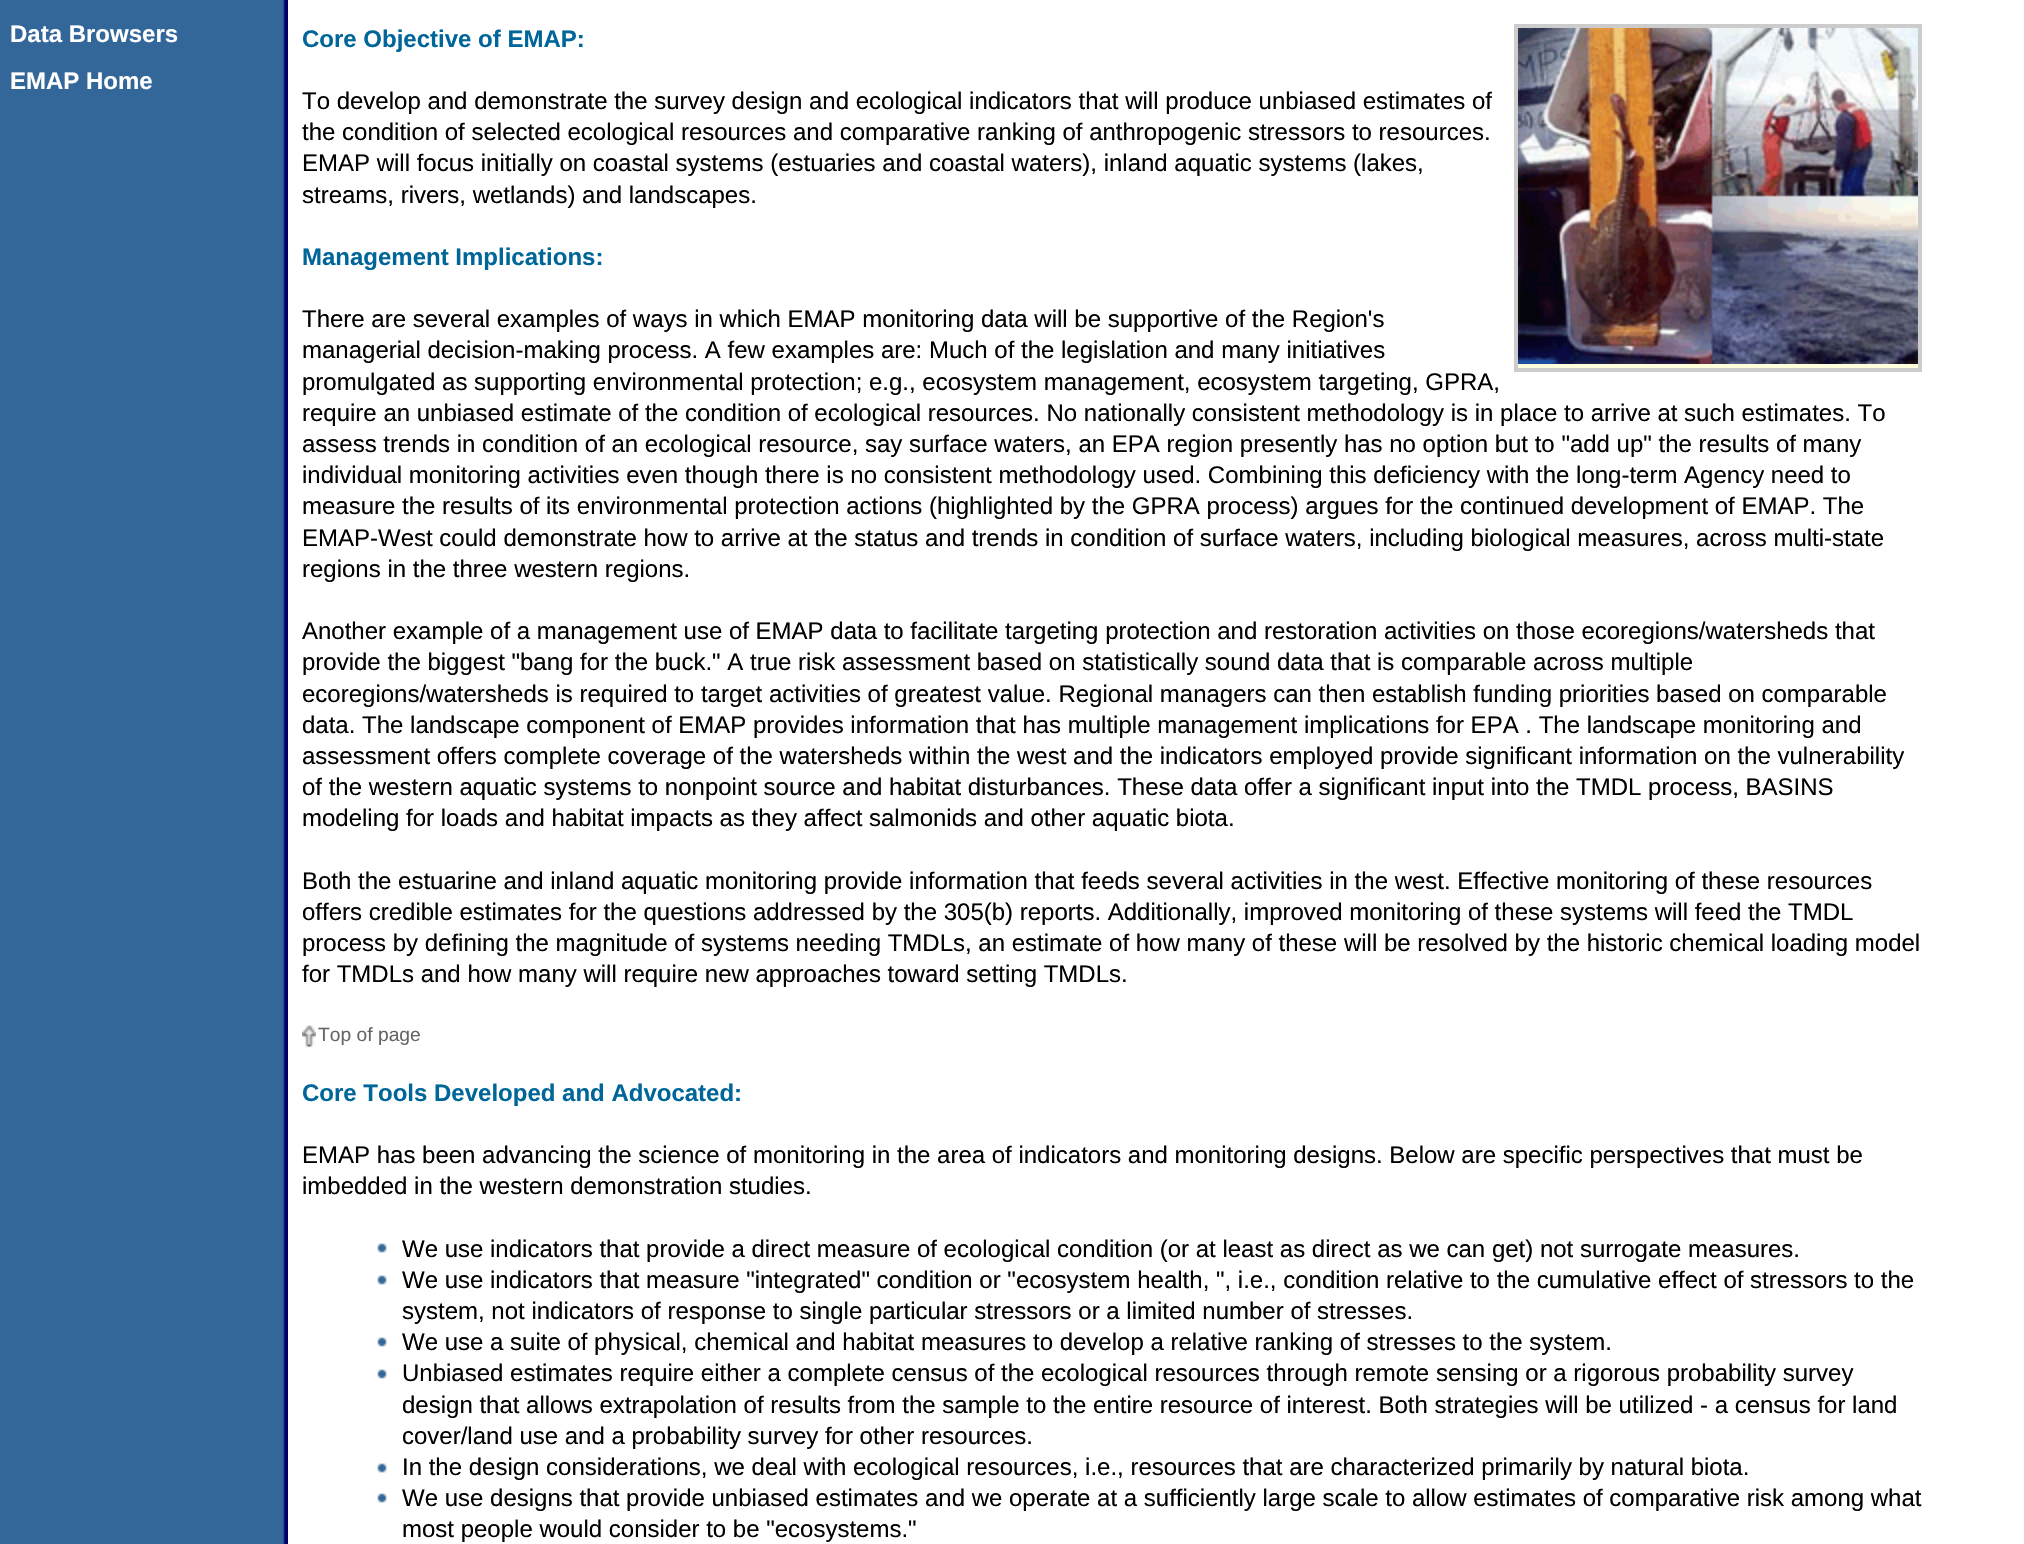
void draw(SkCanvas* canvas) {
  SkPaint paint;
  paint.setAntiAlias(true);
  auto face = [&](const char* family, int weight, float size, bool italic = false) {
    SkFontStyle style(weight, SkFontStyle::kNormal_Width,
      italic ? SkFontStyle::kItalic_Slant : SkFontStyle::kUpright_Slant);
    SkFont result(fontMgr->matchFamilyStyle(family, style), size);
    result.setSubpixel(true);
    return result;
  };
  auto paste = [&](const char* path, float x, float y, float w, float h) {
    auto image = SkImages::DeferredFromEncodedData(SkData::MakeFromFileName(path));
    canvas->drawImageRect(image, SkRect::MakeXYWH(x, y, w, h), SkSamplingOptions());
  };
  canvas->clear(0xffffffff);
  paste("img/1.png", 0, 0, 288, 1544);
  paint.setColor(0xffffffdb);
  canvas->drawRect(SkRect::MakeXYWH(1518, 364, 400, 4), paint);
  paint.setStroke(true);
  paint.setStrokeWidth(4);
  paint.setColor(0xffcccccc);
  canvas->drawRect(SkRect::MakeXYWH(1516, 26, 404, 344), paint);
  paste("img/2.png", 1518, 28, 400, 336);
  paste("img/3.png", 302, 1025, 14, 23);
  paste("img/4.png", 377, 1243, 10, 10);
  paste("img/4.png", 377, 1275, 10, 10);
  paste("img/4.png", 377, 1337, 10, 10);
  paste("img/4.png", 377, 1369, 10, 10);
  paste("img/4.png", 377, 1463, 10, 10);
  paste("img/4.png", 377, 1493, 10, 10);
  auto f0 = face("Liberation Sans", 700, 24);
  paint.setStroke(false);
  paint.setColor(0xffffffff);
  canvas->drawString("Data Browsers", 10, 42, f0, paint);
  canvas->drawString("EMAP Home", 10, 89, f0, paint);
  paint.setColor(0xff006699);
  canvas->drawString("Core Objective of EMAP:", 302, 47, f0, paint);
  auto f1 = face("Liberation Sans", 400, 24);
  paint.setColor(0xff000000);
  {
    const struct { const char* s; float x, y; } items[] = {
      {"To develop and demonstrate the survey design and ecological indicators that will produce unbiased estimates of", 302, 109},
      {"the condition of selected ecological resources and comparative ranking of anthropogenic stressors to resources.", 302, 140},
      {"EMAP will focus initially on coastal systems (estuaries and coastal waters), inland aquatic systems (lakes,", 302, 171},
      {"streams, rivers, wetlands) and landscapes.", 302, 203},
    };
    for (auto [s, x, y] : items) {
      canvas->drawString(s, x, y, f1, paint);
    }
  }
  paint.setColor(0xff006699);
  canvas->drawString("Management Implications:", 302, 265, f0, paint);
  paint.setColor(0xff000000);
  {
    const struct { const char* s; float x, y; } items[] = {
      {"There are several examples of ways in which EMAP monitoring data will be supportive of the Region's", 302, 327},
      {"managerial decision-making process. A few examples are: Much of the legislation and many initiatives", 302, 358},
      {"promulgated as supporting environmental protection; e.g., ecosystem management, ecosystem targeting, GPRA,", 302, 390},
      {"require an unbiased estimate of the condition of ecological resources. No nationally consistent methodology is in place to arrive at such estimates. To", 302, 421},
      {"assess trends in condition of an ecological resource, say surface waters, an EPA region presently has no option but to \"add up\" the results of many", 302, 452},
      {"individual monitoring activities even though there is no consistent methodology used. Combining this deficiency with the long-term Agency need to", 302, 483},
      {"measure the results of its environmental protection actions (highlighted by the GPRA process) argues for the continued development of EMAP. The", 302, 514},
      {"EMAP-West could demonstrate how to arrive at the status and trends in condition of surface waters, including biological measures, across multi-state", 302, 546},
      {"regions in the three western regions.", 302, 577},
      {"Another example of a management use of EMAP data to facilitate targeting protection and restoration activities on those ecoregions/watersheds that", 302, 639},
      {"provide the biggest \"bang for the buck.\" A true risk assessment based on statistically sound data that is comparable across multiple", 302, 670},
      {"ecoregions/watersheds is required to target activities of greatest value. Regional managers can then establish funding priorities based on comparable", 302, 702},
      {"data. The landscape component of EMAP provides information that has multiple management implications for EPA . The landscape monitoring and", 302, 733},
      {"assessment offers complete coverage of the watersheds within the west and the indicators employed provide significant information on the vulnerability", 302, 764},
      {"of the western aquatic systems to nonpoint source and habitat disturbances. These data offer a significant input into the TMDL process, BASINS", 302, 795},
      {"modeling for loads and habitat impacts as they affect salmonids and other aquatic biota.", 302, 826},
      {"Both the estuarine and inland aquatic monitoring provide information that feeds several activities in the west. Effective monitoring of these resources", 302, 889},
      {"offers credible estimates for the questions addressed by the 305(b) reports. Additionally, improved monitoring of these systems will feed the TMDL", 302, 920},
      {"process by defining the magnitude of systems needing TMDLs, an estimate of how many of these will be resolved by the historic chemical loading model", 302, 951},
      {"for TMDLs and how many will require new approaches toward setting TMDLs.", 302, 982},
    };
    for (auto [s, x, y] : items) {
      canvas->drawString(s, x, y, f1, paint);
    }
  }
  auto f2 = face("Liberation Sans", 400, 19.25f);
  paint.setColor(0xff666666);
  canvas->drawString("Top of page", 318, 1041, f2, paint);
  paint.setColor(0xff006699);
  canvas->drawString("Core Tools Developed and Advocated:", 302, 1101, f0, paint);
  paint.setColor(0xff000000);
  {
    const struct { const char* s; float x, y; } items[] = {
      {"EMAP has been advancing the science of monitoring in the area of indicators and monitoring designs. Below are specific perspectives that must be", 302, 1163},
      {"imbedded in the western demonstration studies.", 302, 1194},
      {"We use indicators that provide a direct measure of ecological condition (or at least as direct as we can get) not surrogate measures.", 402, 1257},
      {"We use indicators that measure \"integrated\" condition or \"ecosystem health, \", i.e., condition relative to the cumulative effect of stressors to the", 402, 1288},
      {"system, not indicators of response to single particular stressors or a limited number of stresses.", 402, 1319},
      {"We use a suite of physical, chemical and habitat measures to develop a relative ranking of stresses to the system.", 402, 1350},
      {"Unbiased estimates require either a complete census of the ecological resources through remote sensing or a rigorous probability survey", 402, 1381},
      {"design that allows extrapolation of results from the sample to the entire resource of interest. Both strategies will be utilized - a census for land", 402, 1413},
      {"cover/land use and a probability survey for other resources.", 402, 1444},
      {"In the design considerations, we deal with ecological resources, i.e., resources that are characterized primarily by natural biota.", 402, 1475},
      {"We use designs that provide unbiased estimates and we operate at a sufficiently large scale to allow estimates of comparative risk among what", 402, 1506},
      {"most people would consider to be \"ecosystems.\"", 402, 1537},
    };
    for (auto [s, x, y] : items) {
      canvas->drawString(s, x, y, f1, paint);
    }
  }
}
